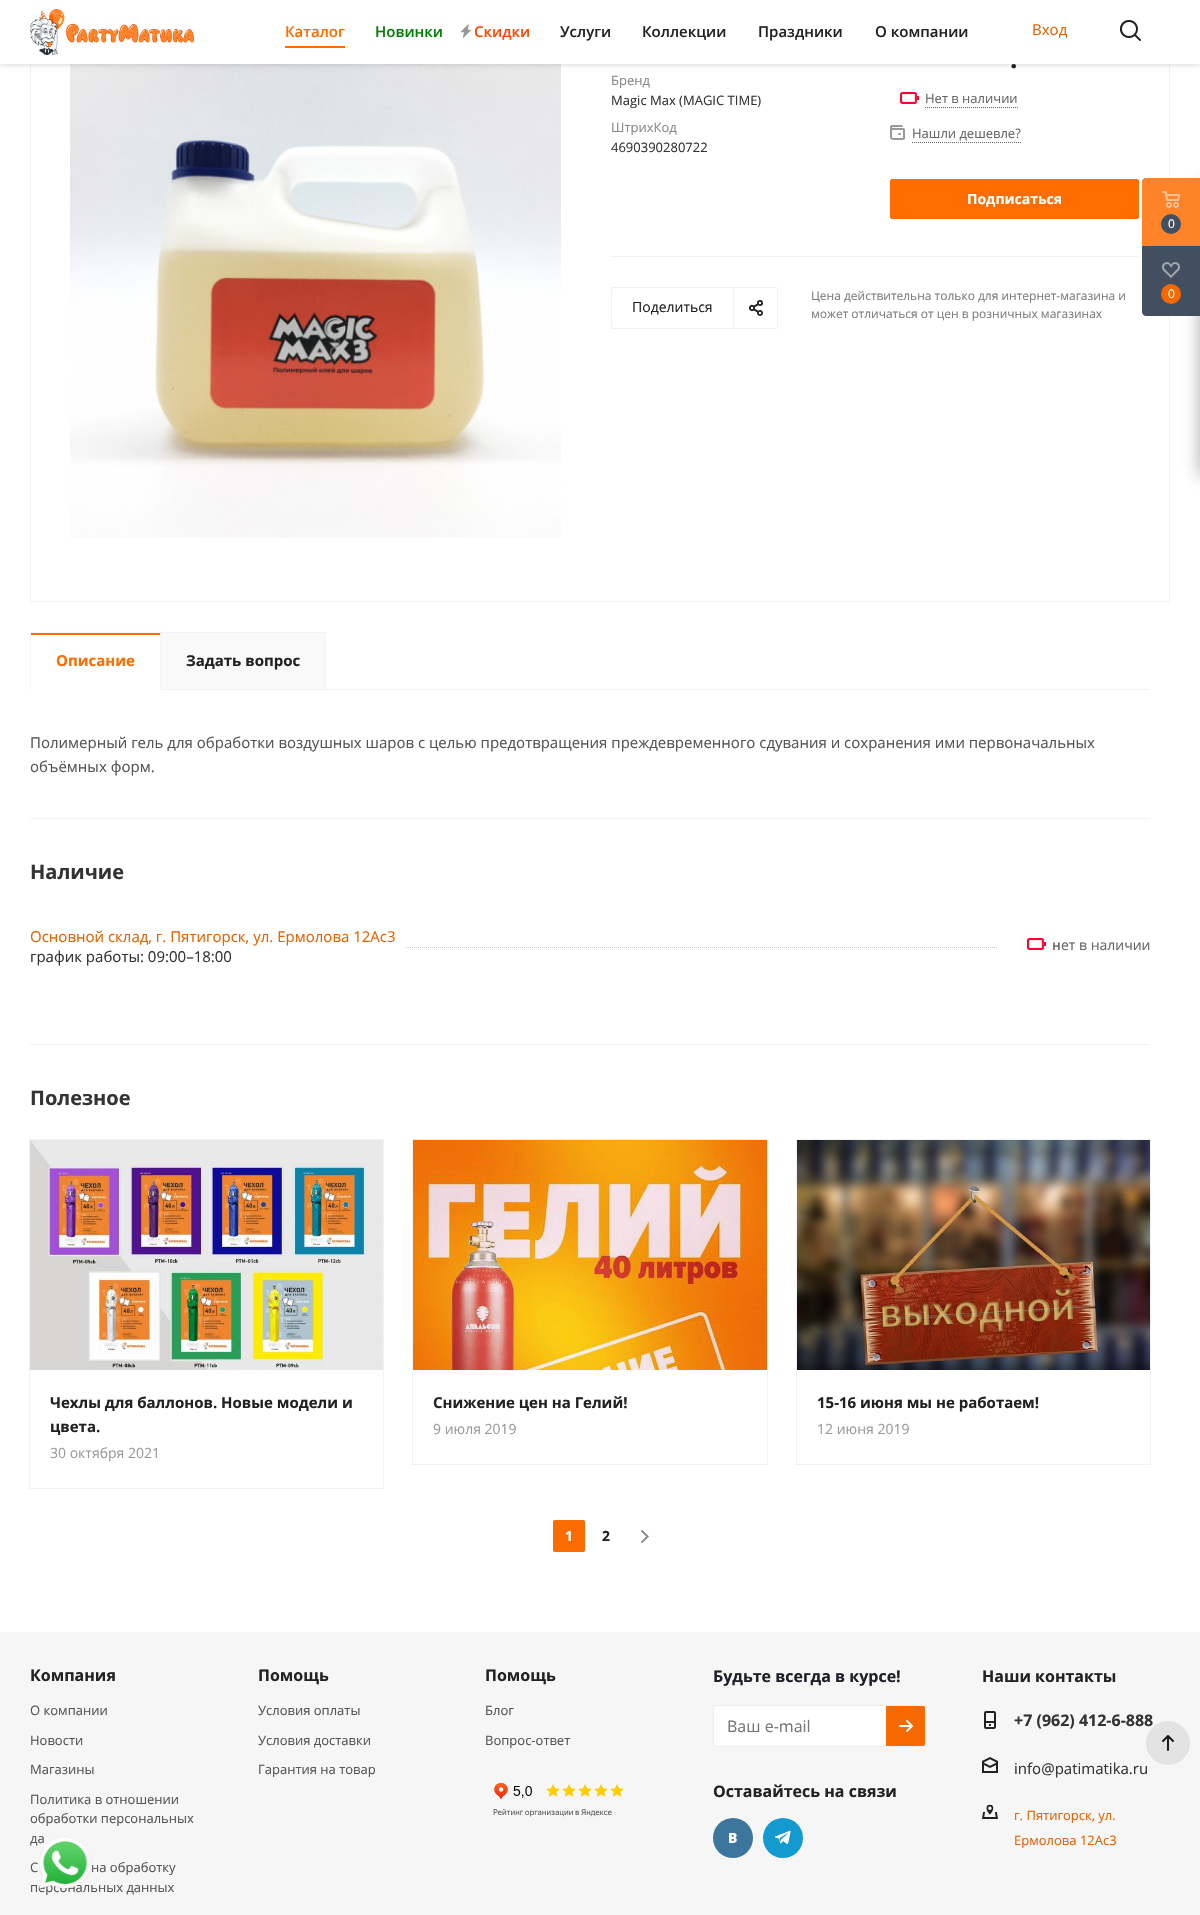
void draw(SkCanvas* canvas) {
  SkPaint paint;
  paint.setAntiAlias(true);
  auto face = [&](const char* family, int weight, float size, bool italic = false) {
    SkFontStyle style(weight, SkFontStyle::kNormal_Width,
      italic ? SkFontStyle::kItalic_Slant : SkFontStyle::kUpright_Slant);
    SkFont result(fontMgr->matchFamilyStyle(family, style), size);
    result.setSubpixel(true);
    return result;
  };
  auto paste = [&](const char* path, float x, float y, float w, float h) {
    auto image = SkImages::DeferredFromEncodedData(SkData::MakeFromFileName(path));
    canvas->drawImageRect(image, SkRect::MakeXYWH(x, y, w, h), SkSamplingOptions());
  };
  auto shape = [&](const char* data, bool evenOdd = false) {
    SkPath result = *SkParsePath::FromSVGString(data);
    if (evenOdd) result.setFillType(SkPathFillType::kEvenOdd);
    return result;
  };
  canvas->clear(0xffffffff);
  paint.setStroke(true);
  paint.setStrokeWidth(1);
  paint.setColor(0xfff2f2f2);
  canvas->drawRect(SkRect::MakeXYWH(30.5f, -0.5f, 1139, 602), paint);
  paste("img/4.png", 70, 64, 491, 474);
  paint.setStroke(false);
  paint.setColor(0x24000000);
  paint.setMaskFilter(SkMaskFilter::MakeBlur(kNormal_SkBlurStyle, 2.5f));
  canvas->drawRect(SkRect::MakeXYWH(0, 1, 1200, 64), paint);
  paint.setMaskFilter(nullptr);
  paint.setColor(0xffffffff);
  canvas->drawRect(SkRect::MakeXYWH(0, 0, 1200, 64), paint);
  paste("img/1.png", 30, 9, 164, 46);
  paint.setColor(0xffff6d00);
  canvas->drawRect(SkRect::MakeXYWH(285, 46, 60, 2), paint);
  paste("img/2.png", 460, 24, 12, 15);
  paint.setColor(0xff222222);
  canvas->drawRect(SkRect::MakeXYWH(1120, 20, 21, 21), paint);
  paste("img/3.png", 1120, 20, 21, 21);
  paste("img/5.png", 900, 92, 19, 12);
  paint.setStroke(true);
  paint.setColor(0xff666666);
  paint.setPathEffect(SkDashPathEffect::Make({{1, 1}}, 0));
  canvas->drawPath(shape("M925 107.5H1018"), paint);
  paint.setPathEffect(nullptr);
  paste("img/6.png", 890, 125, 15, 15);
  paint.setPathEffect(SkDashPathEffect::Make({{1, 1}}, 0));
  canvas->drawPath(shape("M912 142.5H1021"), paint);
  paint.setPathEffect(nullptr);
  paint.setStroke(false);
  paint.setColor(0xffff6d00);
  canvas->drawRoundRect(SkRect::MakeXYWH(890.5f, 179.5f, 248, 39), 1.5f, 1.5f, paint);
  paint.setStroke(true);
  canvas->drawRoundRect(SkRect::MakeXYWH(890.5f, 179.5f, 248, 39), 1.5f, 1.5f, paint);
  paint.setStroke(false);
  paint.setColor(0xfff2f2f2);
  canvas->drawRect(SkRect::MakeXYWH(611, 256, 528, 1), paint);
  canvas->drawRect(SkRect::MakeXYWH(733, 287, 1, 42), paint);
  paste("img/7.png", 749, 300, 14, 16);
  paint.setStroke(true);
  canvas->drawRoundRect(SkRect::MakeXYWH(611.5f, 287.5f, 166, 41), 1.5f, 1.5f, paint);
  paint.setStroke(false);
  canvas->drawRect(SkRect::MakeXYWH(326, 689, 824, 1), paint);
  paint.setColor(0xfff9f9fa);
  canvas->drawRect(SkRect::MakeXYWH(160.5f, 632.5f, 165, 57), paint);
  paint.setStroke(true);
  paint.setColor(0xfff2f2f2);
  canvas->drawRect(SkRect::MakeXYWH(160.5f, 632.5f, 165, 57), paint);
  paint.setStroke(false);
  {
    const struct { float x, y, w, h; SkColor color; } items[] = {
      {30, 632, 131, 1, 0xfff5f5f5},
      {160, 632, 1, 58, 0xfff5f5f5},
      {160, 689, 1, 1, 0xffffffff},
      {30, 632, 1, 58, 0xfff5f5f5},
      {31, 633, 129, 2, 0xffff6d00},
      {30, 818, 1120, 1, 0xfff2f2f2},
    };
    for (auto [x, y, w, h, color] : items) {
      paint.setColor(color);
      canvas->drawRect(SkRect::MakeXYWH(x, y, w, h), paint);
    }
  }
  paint.setStroke(true);
  paint.setColor(0xffc3c3c3);
  paint.setPathEffect(SkDashPathEffect::Make({{1, 1}}, 0));
  canvas->drawPath(shape("M30 947.5H1150"), paint);
  paint.setPathEffect(nullptr);
  paint.setStroke(false);
  paint.setColor(0xffffffff);
  canvas->drawRect(SkRect::MakeXYWH(30, 947, 375, 1), paint);
  canvas->drawRect(SkRect::MakeXYWH(998, 947, 151, 1), paint);
  paste("img/5.png", 1027, 938, 19, 12);
  paint.setColor(0xfff2f2f2);
  canvas->drawRect(SkRect::MakeXYWH(30, 1044, 1120, 1), paint);
  paint.setStroke(true);
  canvas->drawRect(SkRect::MakeXYWH(29.5f, 1139.5f, 354, 349), paint);
  paste("img/8.png", 30, 1140, 353, 230);
  canvas->drawRect(SkRect::MakeXYWH(412.5f, 1139.5f, 355, 325), paint);
  paste("img/9.png", 413, 1140, 354, 230);
  canvas->drawRect(SkRect::MakeXYWH(796.5f, 1139.5f, 354, 325), paint);
  paste("img/10.png", 797, 1140, 353, 230);
  paint.setStroke(false);
  paint.setColor(0xfffa6b00);
  canvas->drawRoundRect(SkRect::MakeXYWH(553, 1520, 32, 32), 2, 2, paint);
  paste("img/11.png", 641, 1530, 8, 13);
  paint.setColor(0x662c2c2c);
  paint.setMaskFilter(SkMaskFilter::MakeBlur(kNormal_SkBlurStyle, 9));
  canvas->drawRoundRect(SkRect::MakeXYWH(1200, 184, 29, 291), 2, 2, paint);
  paint.setMaskFilter(nullptr);
  paint.setColor(0xff424f60);
  canvas->drawPath(shape("M1146 178H1200V316H1146C1144 316 1142 314 1142 312V182C1142 180 1144 178 1146 178Z"), paint);
  paint.setColor(0xffff8429);
  canvas->drawPath(shape("M1146 178H1200V246H1142V182C1142 180 1144 178 1146 178Z"), paint);
  paste("img/12.png", 1162, 191, 18, 17);
  paint.setColor(0xff424f60);
  canvas->drawCircle(1171, 224, 10, paint);
  paste("img/13.png", 1162, 262, 18, 16);
  paint.setColor(0xfff56900);
  canvas->drawCircle(1171, 294, 10, paint);
  paint.setColor(0xfff6f6f7);
  canvas->drawRect(SkRect::MakeXYWH(0, 1632, 1200, 283), paint);
  paste("img/14.png", 493, 1783, 131, 34);
  paint.setColor(0xffffffff);
  canvas->drawRoundRect(SkRect::MakeXYWH(713.5f, 1705.5f, 212, 41), 1.5f, 1.5f, paint);
  paint.setStroke(true);
  paint.setColor(0xffeeeeee);
  canvas->drawRoundRect(SkRect::MakeXYWH(713.5f, 1705.5f, 212, 41), 1.5f, 1.5f, paint);
  paint.setStroke(false);
  paint.setColor(0xfff56900);
  canvas->drawPath(shape("M886 1706H923C924 1706 925 1707 925 1708V1744C925 1745 924 1746 923 1746H886Z"), paint);
  paste("img/15.png", 899, 1720, 14, 12);
  paint.setStroke(true);
  paint.setColor(0xffff6d00);
  canvas->drawPath(shape("M886.5 1706.5H923C924 1706.5 924.5 1707 924.5 1708V1744C924.5 1745 924 1745.5 923 1745.5H886.5Z"), paint);
  paste("img/16.png", 713, 1818, 40, 40);
  paste("img/17.png", 763, 1818, 40, 40);
  paste("img/18.png", 984, 1711, 12, 18);
  paste("img/19.png", 982, 1757, 16, 16);
  paste("img/20.png", 982, 1804, 16, 15);
  auto f0 = face("Open Sans", 600, 15);
  paint.setStroke(false);
  canvas->drawString("Каталог", 285, 37, f0, paint);
  paint.setColor(0xff008000);
  canvas->drawString("Новинки", 375, 37, f0, paint);
  paint.setColor(0xffff4800);
  canvas->drawString("Скидки", 474, 37, f0, paint);
  paint.setColor(0xff222222);
  {
    const struct { const char* s; float x, y; } items[] = {
      {"Услуги", 560, 37},
      {"Коллекции", 642, 37},
      {"Праздники", 758, 37},
      {"О компании", 875, 37},
    };
    for (auto [s, x, y] : items) {
      canvas->drawString(s, x, y, f0, paint);
    }
  }
  auto f1 = face("Open Sans", 400, 15);
  paint.setColor(0xffe66200);
  canvas->drawString("Вход", 1032, 35, f1, paint);
  auto f2 = face("Open Sans", 400, 13);
  paint.setColor(0xff888888);
  canvas->drawString("Бренд", 611, 85, f2, paint);
  paint.setColor(0xff333333);
  canvas->drawString("Magiс Max (MAGIС TIME)", 611, 105, f2, paint);
  paint.setColor(0xff888888);
  canvas->drawString("ШтрихКод", 611, 132, f2, paint);
  paint.setColor(0xff333333);
  canvas->drawString("4690390280722", 611, 152, f2, paint);
  auto f3 = face("Open Sans", 700, 26);
  paint.setColor(0xff1d2029);
  canvas->drawString(".", 1010, 68, f3, paint);
  paint.setColor(0xff666666);
  canvas->drawString("Нет в наличии", 925, 103, f2, paint);
  canvas->drawString("Нашли дешевле?", 912, 138, f2, paint);
  auto f4 = face("Open Sans", 700, 14);
  paint.setColor(0xffffffff);
  canvas->drawString("Подписаться", 967, 204, f4, paint);
  auto f5 = face("Open Sans", 400, 14);
  paint.setColor(0xff222222);
  canvas->drawString("Поделиться", 632, 312, f5, paint);
  auto f6 = face("Open Sans", 400, 12);
  paint.setColor(0xff7d7d7d);
  canvas->drawString("Цена действительна только для интернет-магазина и", 811, 300, f6, paint);
  canvas->drawString("может отличаться от цен в розничных магазинах", 811, 318, f6, paint);
  auto f7 = face("Open Sans", 700, 15);
  paint.setColor(0xffff6d00);
  canvas->drawString("Описание", 56, 666, f7, paint);
  paint.setColor(0xff222222);
  canvas->drawString("Задать вопрос", 186, 666, f7, paint);
  paint.setColor(0xff555555);
  canvas->drawString("Полимерный гель для обработки воздушных шаров с целью предотвращения преждевременного сдувания и сохранения ими первоначальных", 30, 748, f1, paint);
  canvas->drawString("объёмных форм.", 30, 772, f1, paint);
  auto f8 = face("Open Sans", 700, 20);
  paint.setColor(0xff333333);
  canvas->drawString("Наличие", 30, 879, f8, paint);
  paint.setColor(0xffe66200);
  canvas->drawString("Основной склад, г. Пятигорск, ул. Ермолова 12Ас3", 30, 942, f1, paint);
  paint.setColor(0xff333333);
  canvas->drawString("график работы: 09:00–18:00", 30, 962, f1, paint);
  auto f9 = face("Noto Sans", 500, 14);
  paint.setColor(0xff666666);
  canvas->drawString("н", 1052, 950, f9, paint);
  canvas->drawString("ет в наличии", 1061, 950, f5, paint);
  paint.setColor(0xff333333);
  canvas->drawString("Полезное", 30, 1105, f8, paint);
  paint.setColor(0xff222222);
  canvas->drawString("Чехлы для баллонов. Новые модели и", 50, 1408, f7, paint);
  canvas->drawString("цвета.", 50, 1432, f7, paint);
  paint.setColor(0xff9a9a9a);
  canvas->drawString("30 октября 2021", 50, 1458, f5, paint);
  paint.setColor(0xff222222);
  canvas->drawString("Снижение цен на Гелий!", 433, 1408, f7, paint);
  paint.setColor(0xff9a9a9a);
  canvas->drawString("9 июля 2019", 433, 1434, f5, paint);
  paint.setColor(0xff222222);
  canvas->drawString("15-16 июня мы не работаем!", 817, 1408, f7, paint);
  paint.setColor(0xff9a9a9a);
  canvas->drawString("12 июня 2019", 817, 1434, f5, paint);
  paint.setColor(0xffffffff);
  canvas->drawString("1", 565, 1541, f4, paint);
  paint.setColor(0xff1d2029);
  canvas->drawString("2", 602, 1541, f4, paint);
  paint.setColor(0xffffffff);
  canvas->drawString("0", 1168, 228, f6, paint);
  canvas->drawString("0", 1168, 298, f6, paint);
  auto f10 = face("Open Sans", 700, 16);
  paint.setColor(0xff222222);
  canvas->drawString("Компания", 30, 1681, f10, paint);
  paint.setColor(0xff555555);
  {
    const struct { const char* s; float x, y; } items[] = {
      {"О компании", 30, 1715},
      {"Новости", 30, 1745},
      {"Магазины", 30, 1774},
      {"Политика в отношении", 30, 1804},
      {"обработки персональных", 30, 1823},
      {"да", 30, 1843},
      {"С", 30, 1872},
      {"на обработку", 91, 1872},
      {"персональных данных", 30, 1892},
    };
    for (auto [s, x, y] : items) {
      canvas->drawString(s, x, y, f2, paint);
    }
  }
  paint.setColor(0xff222222);
  canvas->drawString("Помощь", 258, 1681, f10, paint);
  paint.setColor(0xff555555);
  {
    const struct { const char* s; float x, y; } items[] = {
      {"Условия оплаты", 258, 1715},
      {"Условия доставки", 258, 1745},
      {"Гарантия на товар", 258, 1774},
    };
    for (auto [s, x, y] : items) {
      canvas->drawString(s, x, y, f2, paint);
    }
  }
  paint.setColor(0xff222222);
  canvas->drawString("Помощь", 485, 1681, f10, paint);
  paint.setColor(0xff555555);
  canvas->drawString("Блог", 485, 1715, f2, paint);
  canvas->drawString("Вопрос-ответ", 485, 1745, f2, paint);
  paint.setColor(0xff1d2029);
  canvas->drawString("Будьте всегда в курсе!", 713, 1682, f10, paint);
  auto f11 = face("Open Sans", 400, 16);
  paint.setColor(0xff757575);
  canvas->drawString("Ваш e-mail", 727, 1732, f11, paint);
  paint.setColor(0xff222222);
  canvas->drawString("Оставайтесь на связи", 713, 1797, f10, paint);
  canvas->drawString("Наши контакты", 982, 1682, f10, paint);
  paint.setColor(0xff333333);
  canvas->drawString("+7 (962) 412-6-888", 1014, 1726, f10, paint);
  canvas->drawString("info@patimatika.ru", 1014, 1774, f1, paint);
  paint.setColor(0xffe66200);
  canvas->drawString("г. Пятигорск, ул.", 1014, 1820, f2, paint);
  canvas->drawString("Ермолова 12Ас3", 1014, 1845, f2, paint);
  paint.setColor(0xffe3e3e3);
  canvas->drawCircle(1168, 1743, 22, paint);
  paint.setStroke(true);
  paint.setStrokeWidth(2);
  paint.setStrokeCap(SkPaint::kRound_Cap);
  paint.setStrokeJoin(SkPaint::kRound_Join);
  paint.setColor(0xff1d1a1a);
  canvas->drawPath(shape("M1168 1736V1750M1163 1741L1168 1736L1173 1741"), paint);
  paste("img/21.png", 39, 1836, 53, 53);
}
